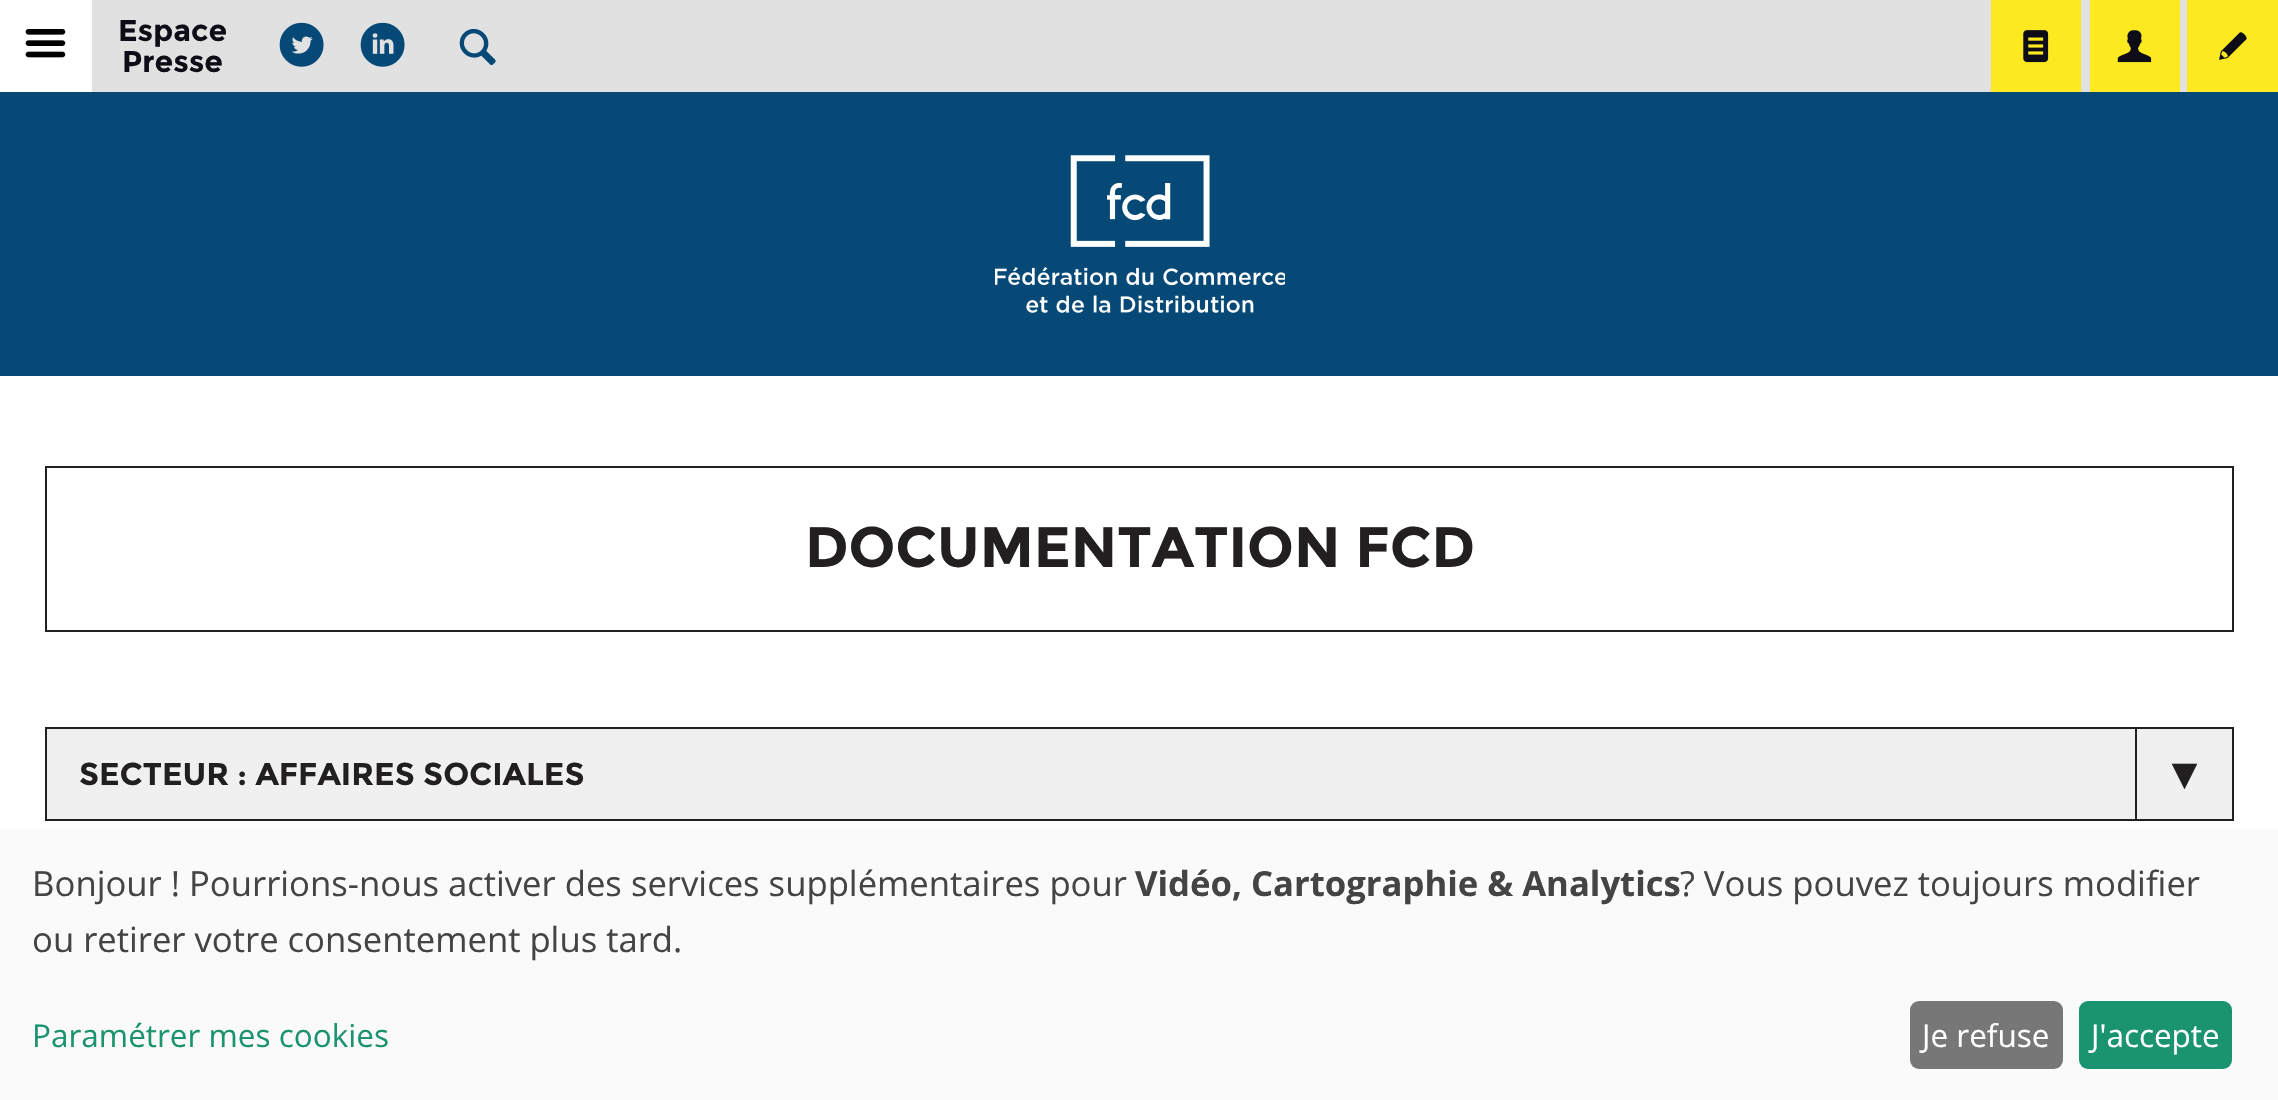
void draw(SkCanvas* canvas) {
  SkPaint paint;
  paint.setAntiAlias(true);
  auto face = [&](const char* family, int weight, float size, bool italic = false) {
    SkFontStyle style(weight, SkFontStyle::kNormal_Width,
      italic ? SkFontStyle::kItalic_Slant : SkFontStyle::kUpright_Slant);
    SkFont result(fontMgr->matchFamilyStyle(family, style), size);
    result.setSubpixel(true);
    return result;
  };
  auto paste = [&](const char* path, float x, float y, float w, float h) {
    auto image = SkImages::DeferredFromEncodedData(SkData::MakeFromFileName(path));
    canvas->drawImageRect(image, SkRect::MakeXYWH(x, y, w, h), SkSamplingOptions());
  };
  canvas->clear(0xffffffff);
  paste("img/1.png", 25, 29, 41, 29);
  paint.setColor(0xffe2e1e1);
  canvas->drawRect(SkRect::MakeXYWH(92, 0, 2095, 92), paint);
  paste("img/2.png", 279, 22, 45, 45);
  paste("img/3.png", 360, 22, 45, 45);
  paste("img/4.png", 459, 28, 37, 38);
  paint.setColor(0xfffce920);
  canvas->drawRect(SkRect::MakeXYWH(1991, 0, 90, 92), paint);
  paste("img/5.png", 2023, 30, 26, 33);
  canvas->drawRect(SkRect::MakeXYWH(2090, 0, 90, 92), paint);
  paste("img/6.png", 2117, 30, 35, 33);
  canvas->drawRect(SkRect::MakeXYWH(2187, 0, 91, 92), paint);
  paste("img/7.png", 2219, 32, 28, 28);
  paint.setColor(0xff064977);
  canvas->drawRect(SkRect::MakeXYWH(0, 92, 2278, 284), paint);
  paste("img/8.png", 995, 155, 290, 158);
  paint.setStroke(true);
  paint.setStrokeWidth(2);
  paint.setColor(0xff221f20);
  canvas->drawRect(SkRect::MakeXYWH(46, 467, 2187, 164), paint);
  paint.setStroke(false);
  paint.setColor(0xfff1f0f0);
  canvas->drawRect(SkRect::MakeXYWH(46, 728, 2187, 92), paint);
  paint.setStroke(true);
  paint.setColor(0xff221f20);
  canvas->drawRect(SkRect::MakeXYWH(46, 728, 2187, 92), paint);
  paint.setStroke(false);
  canvas->drawRect(SkRect::MakeXYWH(2135, 729, 2, 90), paint);
  paint.setColor(0xfffafafa);
  canvas->drawRect(SkRect::MakeXYWH(0, 830, 2278, 270), paint);
  paint.setColor(0xff777777);
  canvas->drawRoundRect(SkRect::MakeXYWH(1910, 1001, 153, 68), 9, 9, paint);
  paint.setColor(0xff1a936f);
  canvas->drawRoundRect(SkRect::MakeXYWH(2079, 1001, 153, 68), 9, 9, paint);
  auto f0 = face("Montserrat", 700, 30);
  paint.setColor(0xff0e0d17);
  canvas->drawString("Espace", 118, 41, f0, paint);
  canvas->drawString("Presse", 122, 72, f0, paint);
  auto f1 = face("Montserrat", 700, 56.75f);
  paint.setColor(0xff221f20);
  canvas->drawString("DOCUMENTATION FCD", 805, 567, f1, paint);
  auto f2 = face("Montserrat", 700, 31.5f);
  canvas->drawString("SECTEUR : AFFAIRES SOCIALES", 79, 785, f2, paint);
  auto f3 = face("DejaVu Sans", 700, 47);
  canvas->drawString("▾", 2172, 789, f3, paint);
  auto f4 = face("Open Sans", 400, 34.65f);
  paint.setColor(0xff444444);
  canvas->drawString("Bonjour ! Pourrions-nous activer des services supplémentaires pour", 32, 896, f4, paint);
  auto f5 = face("Open Sans", 700, 34.65f);
  canvas->drawString("Vidéo, Cartographie & Analytics", 1135, 896, f5, paint);
  canvas->drawString("? Vous pouvez toujours modifier", 1680, 896, f4, paint);
  canvas->drawString("ou retirer votre consentement plus tard.", 32, 952, f4, paint);
  auto f6 = face("Open Sans", 400, 31.5f);
  paint.setColor(0xff1a936f);
  canvas->drawString("Paramétrer mes cookies", 32, 1047, f6, paint);
  paint.setColor(0xffffffff);
  canvas->drawString("Je refuse", 1922, 1047, f6, paint);
  canvas->drawString("J'accepte", 2091, 1047, f6, paint);
}
